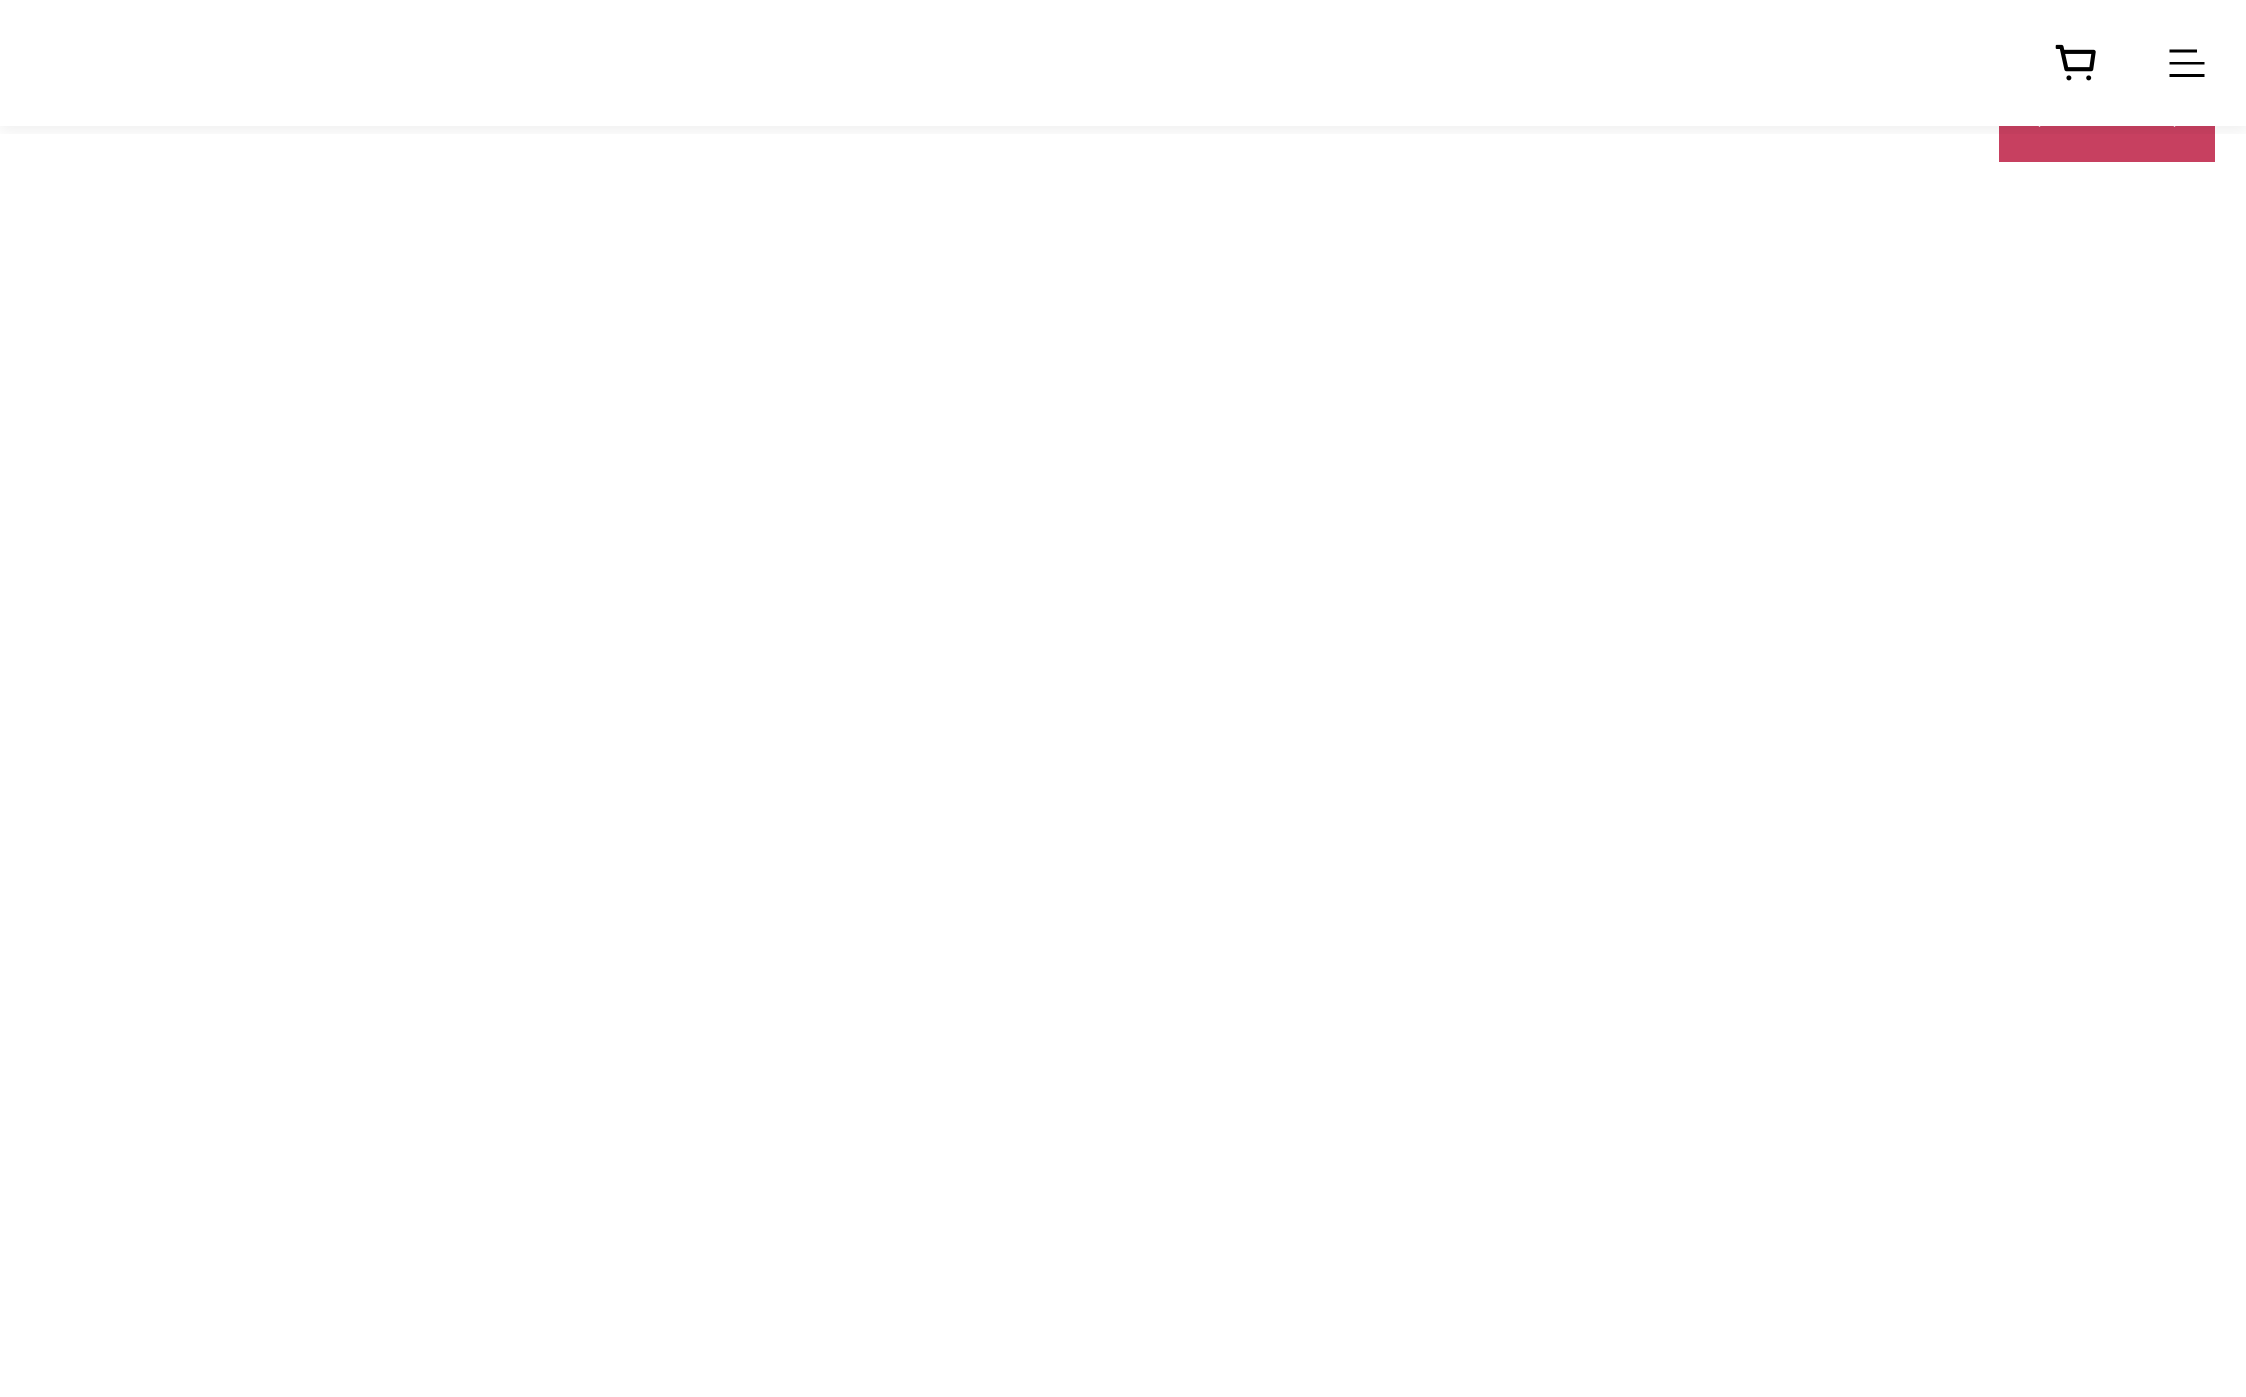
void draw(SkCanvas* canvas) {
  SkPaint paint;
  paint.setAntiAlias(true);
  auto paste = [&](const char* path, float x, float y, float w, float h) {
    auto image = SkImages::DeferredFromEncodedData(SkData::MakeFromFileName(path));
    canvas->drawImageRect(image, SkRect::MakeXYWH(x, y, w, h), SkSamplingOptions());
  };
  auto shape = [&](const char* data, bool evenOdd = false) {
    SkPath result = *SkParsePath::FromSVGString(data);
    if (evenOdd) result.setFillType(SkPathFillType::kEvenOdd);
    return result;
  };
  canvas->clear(0xffffffff);
  paint.setColor(0xffc74060);
  canvas->drawRect(SkRect::MakeXYWH(1999, 126, 216, 36), paint);
  canvas->save();
  canvas->clipRect(SkRect::MakeXYWH(34, 126, 2182, 1220));
  paint.setColor(0xffffffff);
  canvas->drawPath(shape("M2020.5 108L2022 106.5L2041 125.5L2039.5 127Z"), paint);
  canvas->drawPath(shape("M2193.5 108L2174.5 127L2173 125.5L2192 106.5Z"), paint);
  canvas->restore();
  canvas->save();
  canvas->clipRect(SkRect::MakeXYWH(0, 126, 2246, 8));
  paint.setColor(0x0f000000);
  paint.setMaskFilter(SkMaskFilter::MakeBlur(kNormal_SkBlurStyle, 7));
  canvas->drawRect(SkRect::MakeXYWH(0, 5, 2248, 126), paint);
  paint.setMaskFilter(nullptr);
  canvas->restore();
  paste("img/1.png", 2055, 44, 41, 37);
  paint.setColor(0xff000000);
  canvas->drawPath(shape("M2204.5 64.5V62H2169.5V64.5ZM2197 52.5V49.5H2169.5V52.5ZM2204.5 77V74H2169.5V77Z"), paint);
}
